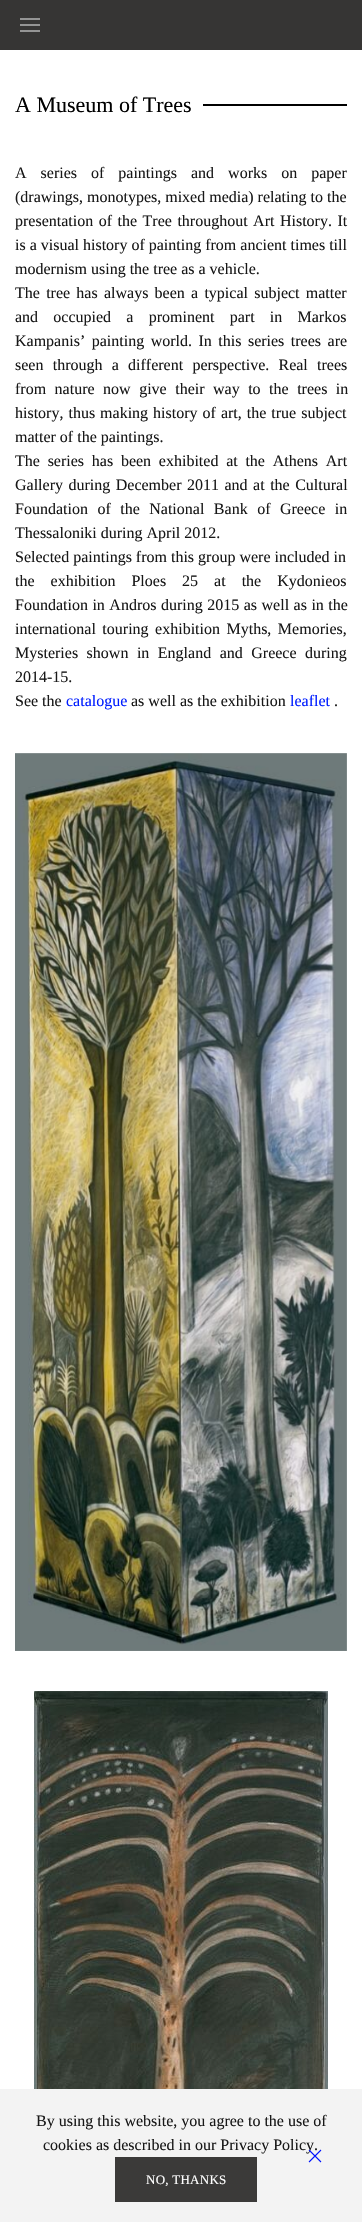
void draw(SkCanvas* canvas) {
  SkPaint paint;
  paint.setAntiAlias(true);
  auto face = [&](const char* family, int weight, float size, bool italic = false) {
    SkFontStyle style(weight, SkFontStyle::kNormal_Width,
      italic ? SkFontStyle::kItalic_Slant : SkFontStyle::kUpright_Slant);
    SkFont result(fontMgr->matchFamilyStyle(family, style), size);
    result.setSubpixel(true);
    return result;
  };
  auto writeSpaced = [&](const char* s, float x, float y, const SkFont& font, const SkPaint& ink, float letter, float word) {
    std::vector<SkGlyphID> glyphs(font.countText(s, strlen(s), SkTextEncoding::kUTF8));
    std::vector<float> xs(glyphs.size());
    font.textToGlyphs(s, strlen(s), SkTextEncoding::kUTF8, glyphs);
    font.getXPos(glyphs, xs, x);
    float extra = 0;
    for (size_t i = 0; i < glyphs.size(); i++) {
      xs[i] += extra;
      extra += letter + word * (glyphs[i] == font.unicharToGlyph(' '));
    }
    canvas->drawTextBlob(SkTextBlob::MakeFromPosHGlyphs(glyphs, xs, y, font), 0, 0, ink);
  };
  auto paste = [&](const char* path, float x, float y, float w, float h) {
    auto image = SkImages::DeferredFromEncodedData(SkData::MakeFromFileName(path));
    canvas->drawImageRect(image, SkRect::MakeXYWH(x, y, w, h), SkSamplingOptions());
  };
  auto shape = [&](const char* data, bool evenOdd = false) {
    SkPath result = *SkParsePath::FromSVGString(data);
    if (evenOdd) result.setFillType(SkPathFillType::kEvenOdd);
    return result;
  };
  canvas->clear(0xffffffff);
  {
    const struct { float x, y, w, h; SkColor color; } items[] = {
      {0, 0, 362, 50, 0xff363534},
      {20, 18, 20, 2, 0xff949494},
      {20, 24, 20, 2, 0xff949494},
      {20, 30, 20, 2, 0xff949494},
      {203, 104, 144, 2, 0xff000000},
    };
    for (auto [x, y, w, h, color] : items) {
      paint.setColor(color);
      canvas->drawRect(SkRect::MakeXYWH(x, y, w, h), paint);
    }
  }
  paste("img/1.png", 15, 753, 332, 898);
  paste("img/2.png", 34, 1691, 294, 398);
  paint.setColor(0xfff3f3f3);
  canvas->drawRect(SkRect::MakeXYWH(0, 2089, 362, 133), paint);
  paint.setColor(0xff3b3a39);
  canvas->drawRect(SkRect::MakeXYWH(115, 2157, 142, 45), paint);
  auto f0 = face("Liberation Serif", 400, 22);
  paint.setColor(0xff000000);
  canvas->drawString("A Museum of Trees", 15, 112, f0, paint);
  auto f1 = face("Liberation Serif", 400, 16);
  paint.setColor(0xff181818);
  writeSpaced("A series of paintings and works on paper", 15, 178, f1, paint, 0, 10);
  canvas->drawString("(drawings, monotypes, mixed media) relating to the", 15, 202, f1, paint);
  writeSpaced("presentation of the Tree throughout Art History. It", 15, 226, f1, paint, 0, 1.5f);
  canvas->drawString("is a visual history of painting from ancient times till", 15, 250, f1, paint);
  canvas->drawString("modernism using the tree as a vehicle.", 15, 274, f1, paint);
  writeSpaced("The tree has always been a typical subject matter", 15, 298, f1, paint, 0, 2.25f);
  writeSpaced("and occupied a prominent part in Markos", 15, 322, f1, paint, 0, 11.25f);
  writeSpaced("Kampanis’ painting world. In this series trees are", 15, 346, f1, paint, 0, 2.5f);
  writeSpaced("seen through a different perspective. Real trees", 15, 370, f1, paint, 0, 5.25f);
  writeSpaced("from nature now give their way to the trees in", 15, 394, f1, paint, 0, 4.5f);
  writeSpaced("history, thus making history of art, the true subject", 15, 418, f1, paint, 0, 1);
  canvas->drawString("matter of the paintings.", 15, 442, f1, paint);
  writeSpaced("The series has been exhibited at the Athens Art", 15, 466, f1, paint, 0, 3.75f);
  writeSpaced("Gallery during December 2011 and at the Cultural", 15, 490, f1, paint, 0, 1.5f);
  writeSpaced("Foundation of the National Bank of Greece in", 15, 514, f1, paint, 0, 5.5f);
  canvas->drawString("Thessaloniki during April 2012.", 15, 538, f1, paint);
  canvas->drawString("Selected paintings from this group were included in", 15, 562, f1, paint);
  writeSpaced("the exhibition Ploes 25 at the Kydonieos", 15, 586, f1, paint, 0, 12);
  writeSpaced("Foundation in Andros during 2015 as well as in the", 15, 610, f1, paint, 0, 0.5f);
  writeSpaced("international touring exhibition Myths, Memories,", 15, 634, f1, paint, 0, 2.5f);
  writeSpaced("Mysteries shown in England and Greece during", 15, 658, f1, paint, 0, 4.5f);
  canvas->drawString("2014-15.", 15, 682, f1, paint);
  canvas->drawString("See the", 15, 706, f1, paint);
  paint.setColor(0xff001dff);
  canvas->drawString("catalogue", 66, 706, f1, paint);
  paint.setColor(0xff181818);
  canvas->drawString("as well as the exhibition", 131, 706, f1, paint);
  paint.setColor(0xff001dff);
  canvas->drawString("leaflet", 290, 706, f1, paint);
  paint.setColor(0xff181818);
  {
    const struct { const char* s; float x, y; } items[] = {
      {".", 334, 706},
      {"By using this website, you agree to the use of", 36, 2126},
      {"cookies as described in our Privacy Policy.", 43, 2150},
    };
    for (auto [s, x, y] : items) {
      canvas->drawString(s, x, y, f1, paint);
    }
  }
  paint.setStroke(true);
  paint.setStrokeWidth(1.1f);
  paint.setColor(0xff0013ff);
  canvas->drawPath(shape("M309 2150L321 2162M321 2150L309 2162"), paint);
  auto f2 = face("Liberation Serif", 400, 13);
  paint.setStroke(false);
  paint.setColor(0xffffffff);
  writeSpaced("NO, THANKS", 146, 2184, f2, paint, 0.25f, 0);
}
